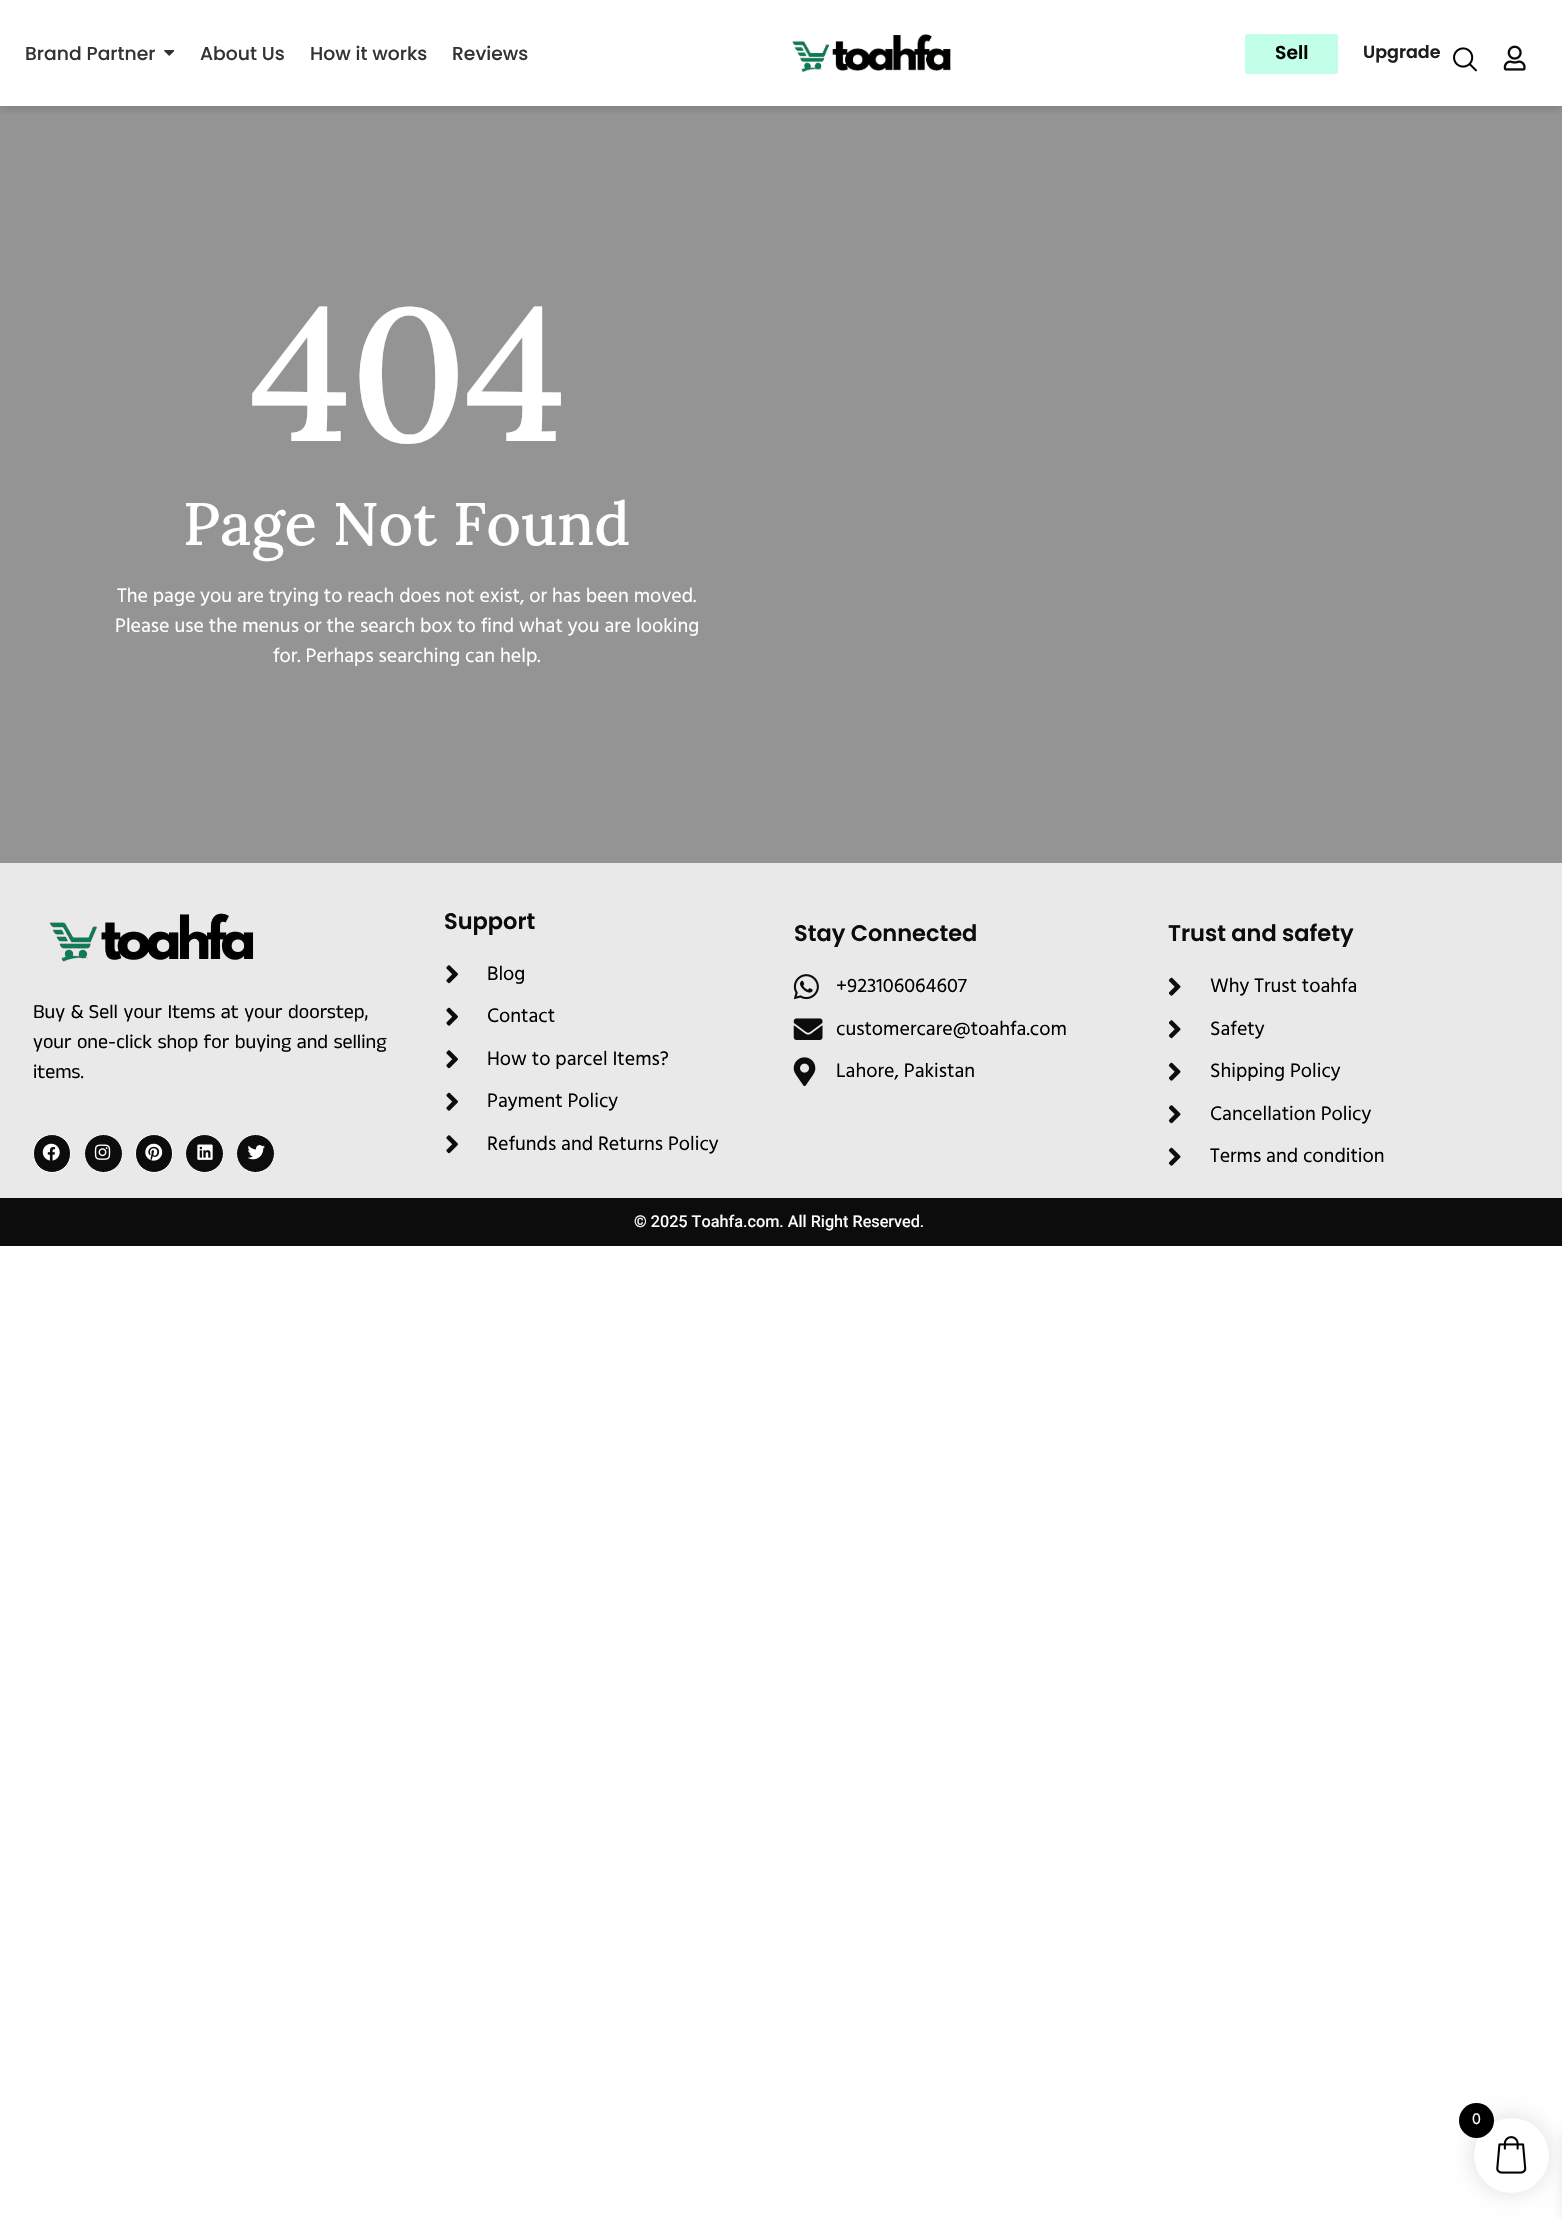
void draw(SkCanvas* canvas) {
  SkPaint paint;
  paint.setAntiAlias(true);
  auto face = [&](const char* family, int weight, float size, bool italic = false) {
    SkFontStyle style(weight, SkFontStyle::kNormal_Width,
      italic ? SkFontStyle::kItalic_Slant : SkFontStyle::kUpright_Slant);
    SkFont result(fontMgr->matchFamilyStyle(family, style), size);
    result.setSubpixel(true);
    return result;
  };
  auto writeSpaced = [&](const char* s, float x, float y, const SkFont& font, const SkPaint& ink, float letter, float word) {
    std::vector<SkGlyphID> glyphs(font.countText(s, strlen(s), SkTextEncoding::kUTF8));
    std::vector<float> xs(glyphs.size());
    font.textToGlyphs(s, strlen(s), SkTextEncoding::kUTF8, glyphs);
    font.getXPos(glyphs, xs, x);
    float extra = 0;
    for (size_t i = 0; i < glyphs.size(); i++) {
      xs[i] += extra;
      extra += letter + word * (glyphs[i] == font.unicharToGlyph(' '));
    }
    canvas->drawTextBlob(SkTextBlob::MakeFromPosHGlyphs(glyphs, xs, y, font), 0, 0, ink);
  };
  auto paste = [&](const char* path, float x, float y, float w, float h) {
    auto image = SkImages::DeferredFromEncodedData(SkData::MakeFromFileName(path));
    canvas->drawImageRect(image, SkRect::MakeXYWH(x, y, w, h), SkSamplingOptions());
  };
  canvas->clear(0xffffffff);
  paint.setColor(0xff949494);
  canvas->drawRect(SkRect::MakeXYWH(0, 106, 1562, 757), paint);
  canvas->save();
  canvas->clipRect(SkRect::MakeXYWH(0, 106, 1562, 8));
  paint.setColor(0x38000000);
  paint.setMaskFilter(SkMaskFilter::MakeBlur(kNormal_SkBlurStyle, 6));
  canvas->drawRect(SkRect::MakeXYWH(0, 0, 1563, 106), paint);
  paint.setMaskFilter(nullptr);
  canvas->restore();
  paste("img/1.png", 164, 50, 11, 6);
  paste("img/2.png", 792, 34, 159, 39);
  paint.setColor(0xffc2ffe8);
  canvas->drawRoundRect(SkRect::MakeXYWH(1245, 34, 93, 40), 2.5f, 2.5f, paint);
  paste("img/3.png", 1453, 47, 24, 25);
  paste("img/4.png", 1503, 45, 23, 26);
  paint.setColor(0xffeae9e9);
  canvas->drawRect(SkRect::MakeXYWH(0, 863, 1562, 335), paint);
  paste("img/5.png", 49, 913, 205, 49);
  paint.setColor(0xff0c0c0c);
  canvas->drawRoundRect(SkRect::MakeXYWH(33.5f, 1134.5f, 37, 38), 18.5f, 18.5f, paint);
  paint.setStroke(true);
  paint.setStrokeWidth(1);
  paint.setColor(0xffffffff);
  canvas->drawRoundRect(SkRect::MakeXYWH(33.5f, 1134.5f, 37, 38), 18.5f, 18.5f, paint);
  paste("img/6.png", 42, 1143, 18, 18);
  paint.setStroke(false);
  paint.setColor(0xff0c0c0c);
  canvas->drawCircle(103.5f, 1153.5f, 19, paint);
  paint.setStroke(true);
  paint.setColor(0xffffffff);
  canvas->drawCircle(103.5f, 1153.5f, 19, paint);
  paste("img/7.png", 94, 1144, 17, 16);
  paint.setStroke(false);
  paint.setColor(0xff0c0c0c);
  canvas->drawRoundRect(SkRect::MakeXYWH(135.5f, 1134.5f, 37, 38), 18.5f, 18.5f, paint);
  paint.setStroke(true);
  paint.setColor(0xffffffff);
  canvas->drawRoundRect(SkRect::MakeXYWH(135.5f, 1134.5f, 37, 38), 18.5f, 18.5f, paint);
  paste("img/8.png", 145, 1143, 18, 18);
  paint.setStroke(false);
  paint.setColor(0xff0c0c0c);
  canvas->drawCircle(204.5f, 1153.5f, 19, paint);
  paint.setStroke(true);
  paint.setColor(0xffffffff);
  canvas->drawCircle(204.5f, 1153.5f, 19, paint);
  paste("img/9.png", 197, 1144, 16, 16);
  paint.setStroke(false);
  paint.setColor(0xff0c0c0c);
  canvas->drawCircle(255.5f, 1153.5f, 19, paint);
  paint.setStroke(true);
  paint.setColor(0xffffffff);
  canvas->drawCircle(255.5f, 1153.5f, 19, paint);
  paste("img/10.png", 247, 1145, 18, 15);
  paste("img/11.png", 446, 965, 12, 19);
  paste("img/12.png", 446, 1007, 12, 19);
  paste("img/11.png", 446, 1050, 12, 19);
  paste("img/12.png", 446, 1092, 12, 19);
  paste("img/11.png", 446, 1135, 12, 19);
  paste("img/13.png", 793, 974, 26, 26);
  paste("img/14.png", 793, 1018, 30, 22);
  paste("img/15.png", 793, 1057, 23, 30);
  paste("img/16.png", 1168, 977, 13, 19);
  paste("img/17.png", 1168, 1020, 13, 19);
  paste("img/16.png", 1168, 1062, 13, 19);
  paste("img/17.png", 1168, 1105, 13, 19);
  paste("img/16.png", 1168, 1147, 13, 19);
  paint.setStroke(false);
  paint.setColor(0xff0c0c0c);
  canvas->drawRect(SkRect::MakeXYWH(0, 1198, 1562, 48), paint);
  paint.setColor(0x1a000000);
  paint.setMaskFilter(SkMaskFilter::MakeBlur(kNormal_SkBlurStyle, 9.5f));
  canvas->drawRoundRect(SkRect::MakeXYWH(1471, 2115, 80, 80), 40, 40, paint);
  paint.setMaskFilter(nullptr);
  paint.setMaskFilter(SkMaskFilter::MakeBlur(kNormal_SkBlurStyle, 6));
  canvas->drawRect(SkRect::MakeXYWH(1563, 2134, 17, 85), paint);
  paint.setMaskFilter(nullptr);
  paint.setColor(0xffffffff);
  canvas->drawCircle(1511.5f, 2155.5f, 37.5f, paint);
  paint.setColor(0xff000000);
  canvas->drawCircle(1476.5f, 2120.5f, 17.5f, paint);
  paste("img/18.png", 1496, 2136, 31, 38);
  auto f0 = face("Poppins", 500, 18.75f);
  paint.setColor(0xff333333);
  {
    const struct { const char* s; float x, y; } items[] = {
      {"Brand Partner", 25, 60},
      {"About Us", 200, 60},
      {"How it works", 310, 60},
      {"Reviews", 452, 60},
    };
    for (auto [s, x, y] : items) {
      canvas->drawString(s, x, y, f0, paint);
    }
  }
  auto f1 = face("Poppins", 600, 18.75f);
  paint.setColor(0xff000000);
  canvas->drawString("Sell", 1275, 59, f1, paint);
  auto f2 = face("Poppins", 600, 17.5f);
  paint.setColor(0xff1e1e1e);
  canvas->drawString("Upgrade", 1363, 58, f2, paint);
  auto f3 = face("Lora", 500, 188);
  paint.setColor(0xffffffff);
  writeSpaced("404", 250, 441, f3, paint, -2.5f, 0);
  auto f4 = face("Lora", 500, 60);
  canvas->drawString("Page Not Found", 183, 545, f4, paint);
  auto f5 = face("Hind", 400, 20);
  {
    const struct { const char* s; float x, y; } items[] = {
      {"The page you are trying to reach does not exist, or has been moved.", 117, 602},
      {"Please use the menus or the search box to find what you are looking", 115, 632},
      {"for. Perhaps searching can help.", 273, 662},
    };
    for (auto [s, x, y] : items) {
      canvas->drawString(s, x, y, f5, paint);
    }
  }
  auto f6 = face("Anek Gurmukhi", 400, 20);
  paint.setColor(0xff000000);
  {
    const struct { const char* s; float x, y; } items[] = {
      {"Buy & Sell your Items at your doorstep,", 33, 1018},
      {"your one-click shop for buying and selling", 33, 1048},
      {"items.", 33, 1078},
    };
    for (auto [s, x, y] : items) {
      canvas->drawString(s, x, y, f6, paint);
    }
  }
  auto f7 = face("Poppins", 600, 22.5f);
  paint.setColor(0xff0c0c0c);
  canvas->drawString("Support", 444, 929, f7, paint);
  paint.setColor(0xff000000);
  {
    const struct { const char* s; float x, y; } items[] = {
      {"Blog", 487, 980},
      {"Contact", 487, 1022},
      {"How to parcel Items?", 487, 1065},
      {"Payment Policy", 487, 1107},
      {"Refunds and Returns Policy", 487, 1150},
    };
    for (auto [s, x, y] : items) {
      canvas->drawString(s, x, y, f5, paint);
    }
  }
  paint.setColor(0xff0c0c0c);
  canvas->drawString("Stay Connected", 794, 941, f7, paint);
  paint.setColor(0xff000000);
  {
    const struct { const char* s; float x, y; } items[] = {
      {"+923106064607", 836, 992},
      {"customercare@toahfa.com", 836, 1035},
      {"Lahore, Pakistan", 836, 1077},
    };
    for (auto [s, x, y] : items) {
      canvas->drawString(s, x, y, f5, paint);
    }
  }
  paint.setColor(0xff0c0c0c);
  canvas->drawString("Trust and safety", 1168, 941, f7, paint);
  paint.setColor(0xff000000);
  {
    const struct { const char* s; float x, y; } items[] = {
      {"Why Trust toahfa", 1210, 992},
      {"Safety", 1210, 1035},
      {"Shipping Policy", 1210, 1077},
      {"Cancellation Policy", 1210, 1120},
      {"Terms and condition", 1210, 1162},
    };
    for (auto [s, x, y] : items) {
      canvas->drawString(s, x, y, f5, paint);
    }
  }
  auto f8 = face("Heebo", 500, 16.25f);
  paint.setColor(0xffffffff);
  canvas->drawString("© 2025 Toahfa.com. All Right Reserved.", 634, 1227, f8, paint);
  auto f9 = face("Hind", 400, 16.25f);
  canvas->drawString("0", 1472, 2124, f9, paint);
}
